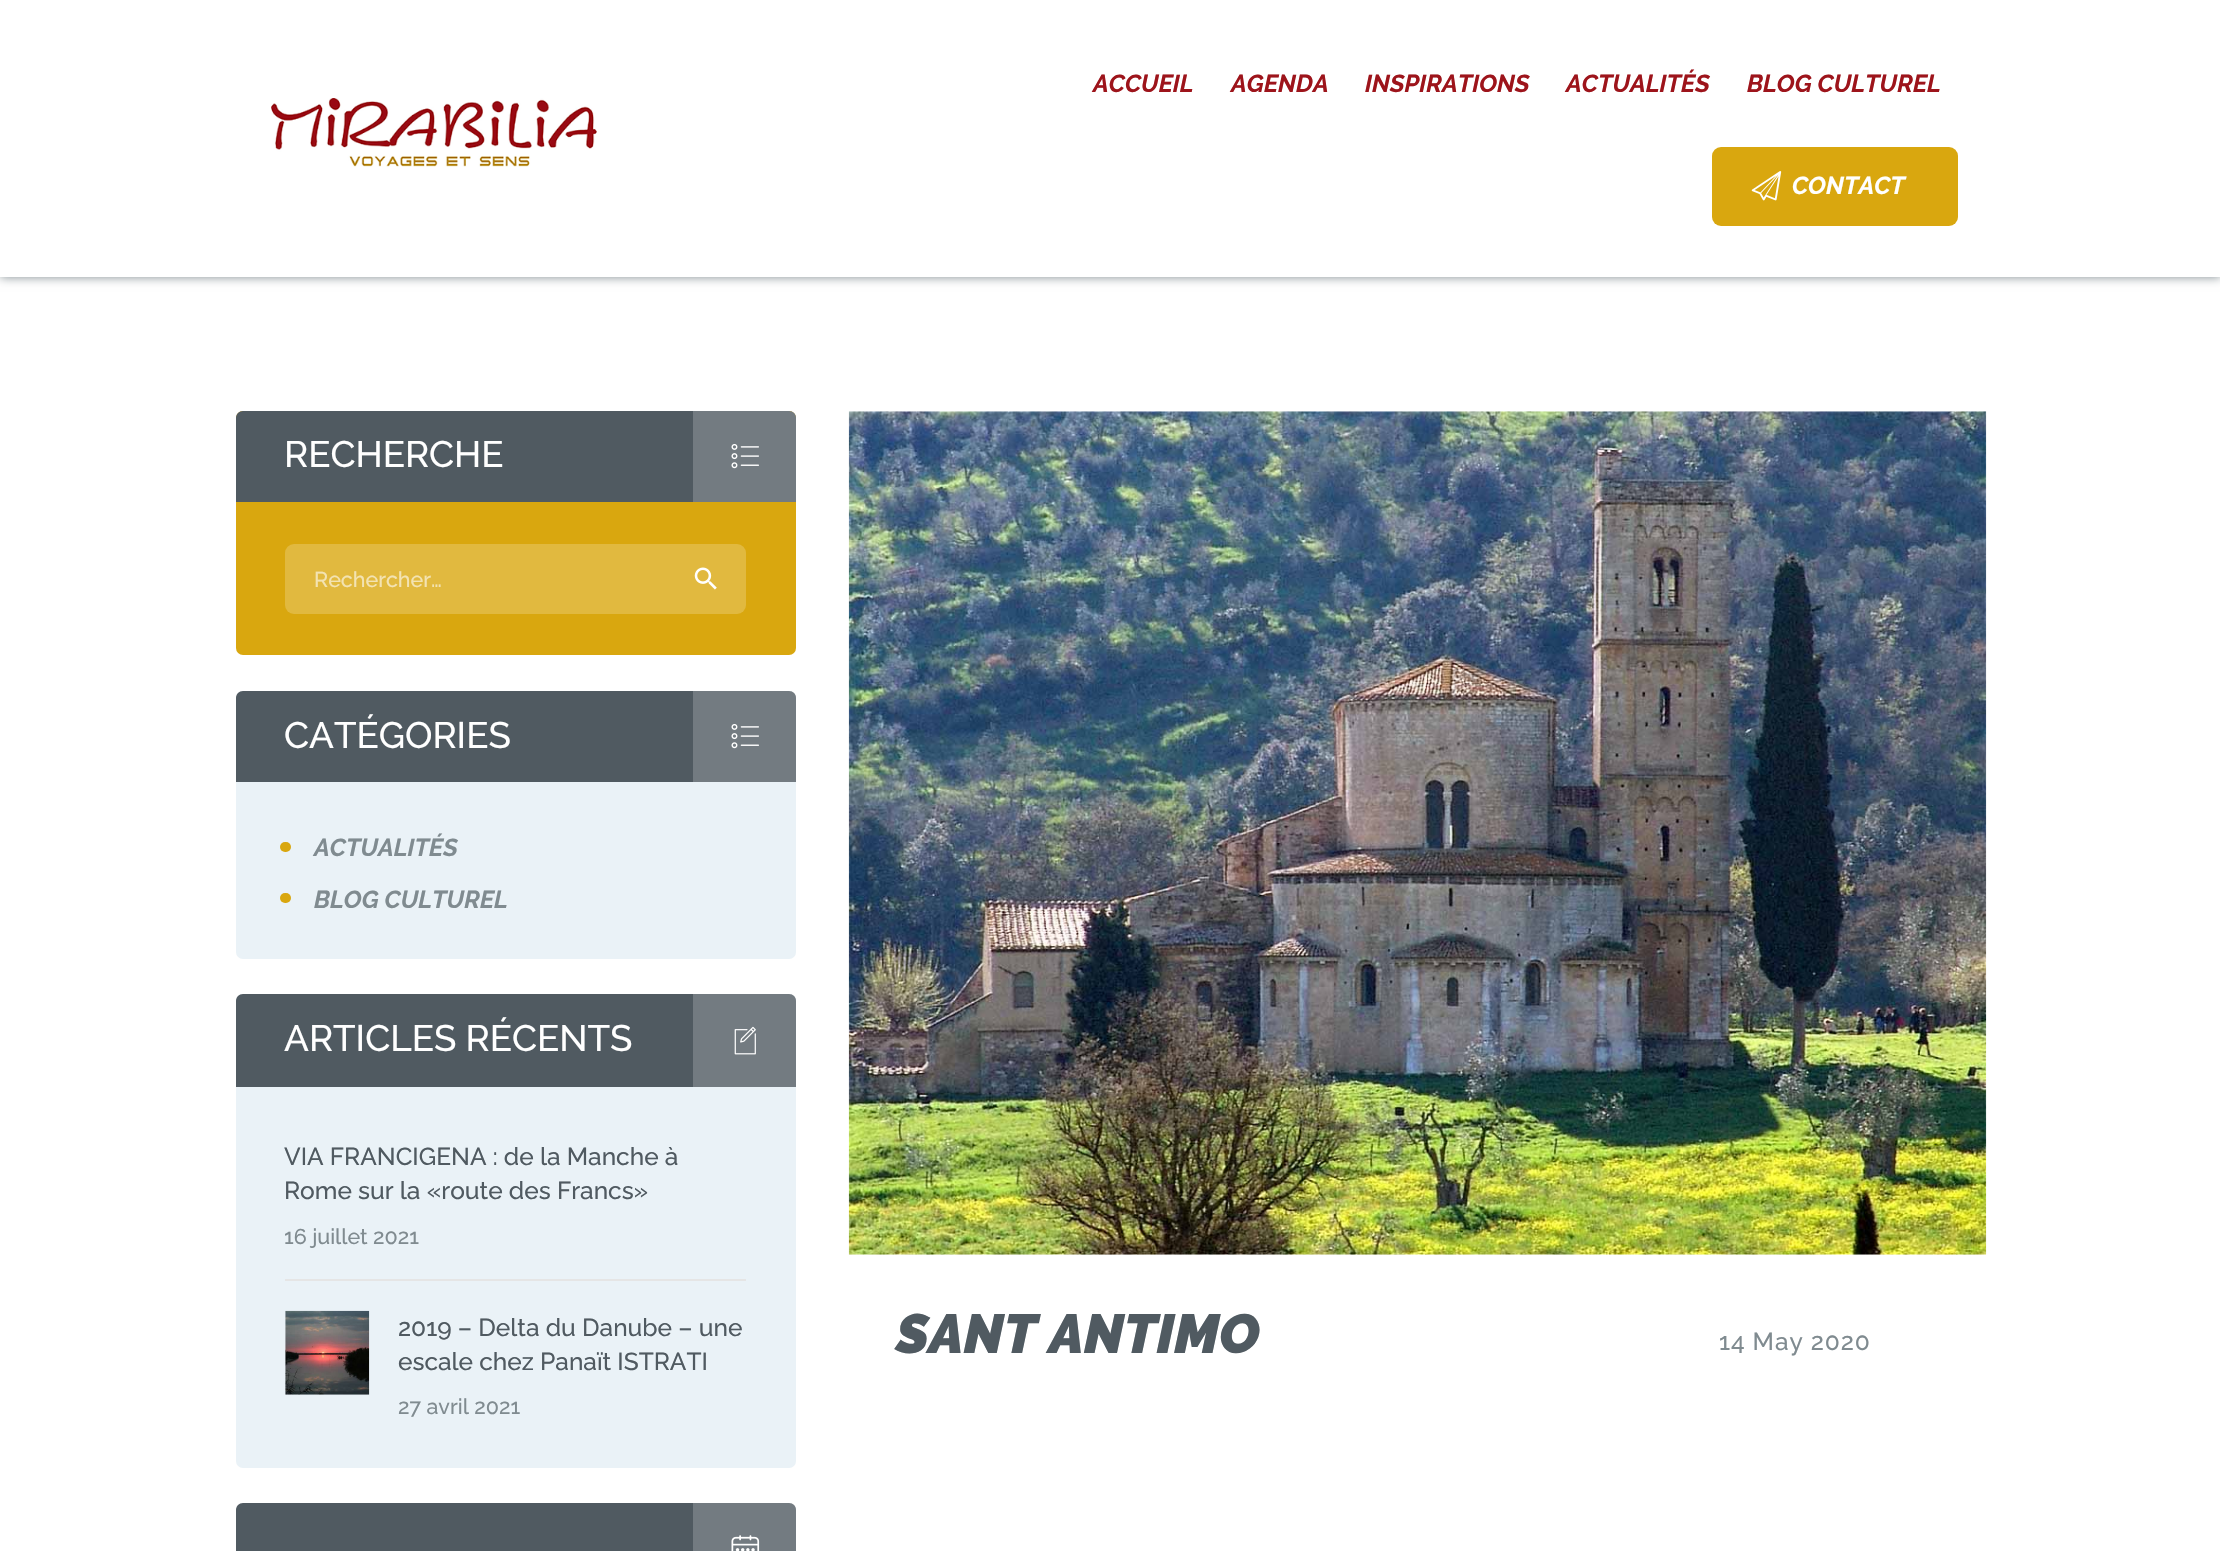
void draw(SkCanvas* canvas) {
  SkPaint paint;
  paint.setAntiAlias(true);
  auto face = [&](const char* family, int weight, float size, bool italic = false) {
    SkFontStyle style(weight, SkFontStyle::kNormal_Width,
      italic ? SkFontStyle::kItalic_Slant : SkFontStyle::kUpright_Slant);
    SkFont result(fontMgr->matchFamilyStyle(family, style), size);
    result.setSubpixel(true);
    return result;
  };
  auto writeSpaced = [&](const char* s, float x, float y, const SkFont& font, const SkPaint& ink, float letter, float word) {
    std::vector<SkGlyphID> glyphs(font.countText(s, strlen(s), SkTextEncoding::kUTF8));
    std::vector<float> xs(glyphs.size());
    font.textToGlyphs(s, strlen(s), SkTextEncoding::kUTF8, glyphs);
    font.getXPos(glyphs, xs, x);
    float extra = 0;
    for (size_t i = 0; i < glyphs.size(); i++) {
      xs[i] += extra;
      extra += letter + word * (glyphs[i] == font.unicharToGlyph(' '));
    }
    canvas->drawTextBlob(SkTextBlob::MakeFromPosHGlyphs(glyphs, xs, y, font), 0, 0, ink);
  };
  auto paste = [&](const char* path, float x, float y, float w, float h) {
    auto image = SkImages::DeferredFromEncodedData(SkData::MakeFromFileName(path));
    canvas->drawImageRect(image, SkRect::MakeXYWH(x, y, w, h), SkSamplingOptions());
  };
  auto shape = [&](const char* data, bool evenOdd = false) {
    SkPath result = *SkParsePath::FromSVGString(data);
    if (evenOdd) result.setFillType(SkPathFillType::kEvenOdd);
    return result;
  };
  canvas->clear(0xffffffff);
  canvas->save();
  canvas->clipPath(shape("M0 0H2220V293H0ZM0 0H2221V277H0Z", true), true);
  paint.setColor(0xff808b90);
  paint.setMaskFilter(SkMaskFilter::MakeBlur(kNormal_SkBlurStyle, 5));
  canvas->drawRect(SkRect::MakeXYWH(0, 0, 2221, 277), paint);
  paint.setMaskFilter(nullptr);
  canvas->restore();
  paste("img/1.png", 271, 98, 326, 69);
  paint.setColor(0xffd9a70f);
  canvas->drawRoundRect(SkRect::MakeXYWH(1712, 147, 246, 79), 9, 9, paint);
  paste("img/2.png", 1751, 171, 31, 30);
  canvas->drawRoundRect(SkRect::MakeXYWH(236, 411, 560, 244), 7, 7, paint);
  paint.setColor(0xff505a61);
  canvas->drawPath(shape("M243 411H789C793 411 796 414 796 418V502H236V418C236 414 239 411 243 411Z"), paint);
  paste("img/3.png", 731, 444, 28, 25);
  paint.setColor(0x33ffffff);
  canvas->drawPath(shape("M693 411H789C793 411 796 414 796 418V502H693Z"), paint);
  paint.setColor(0xffe1b93f);
  canvas->drawRoundRect(SkRect::MakeXYWH(285, 544, 461, 70), 9, 9, paint);
  paste("img/4.png", 694, 567, 23, 23);
  paint.setColor(0xffeaf2f7);
  canvas->drawRoundRect(SkRect::MakeXYWH(236, 691, 560, 268), 7, 7, paint);
  paint.setColor(0xff505a61);
  canvas->drawPath(shape("M243 691H789C793 691 796 694 796 698V782H236V698C236 694 239 691 243 691Z"), paint);
  paste("img/3.png", 731, 724, 28, 25);
  paint.setColor(0x33ffffff);
  canvas->drawPath(shape("M693 691H789C793 691 796 694 796 698V782H693Z"), paint);
  paint.setColor(0xffd9a70f);
  canvas->drawRoundRect(SkRect::MakeXYWH(280, 842, 11, 10), 5, 5, paint);
  canvas->drawRoundRect(SkRect::MakeXYWH(280, 893, 11, 10), 5, 5, paint);
  paint.setColor(0xffeaf2f7);
  canvas->drawRoundRect(SkRect::MakeXYWH(236, 994, 560, 474), 7, 7, paint);
  paint.setColor(0xff505a61);
  canvas->drawPath(shape("M243 994H789C793 994 796 997 796 1001V1087H236V1001C236 997 239 994 243 994Z"), paint);
  paste("img/5.png", 734, 1026, 22, 29);
  paint.setColor(0x33ffffff);
  canvas->drawPath(shape("M693 994H789C793 994 796 997 796 1001V1087H693Z"), paint);
  paint.setColor(0xffe5e5e5);
  canvas->drawRect(SkRect::MakeXYWH(285, 1279, 461, 2), paint);
  paste("img/6.png", 285, 1310, 85, 85);
  paint.setColor(0xff505a61);
  canvas->drawPath(shape("M243 1503H789C793 1503 796 1506 796 1510V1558H236V1510C236 1506 239 1503 243 1503Z"), paint);
  paste("img/7.png", 731, 1535, 29, 16);
  paint.setColor(0x33ffffff);
  canvas->drawPath(shape("M693 1503H789C793 1503 796 1506 796 1510V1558H693Z"), paint);
  paste("img/8.png", 848, 411, 1139, 844);
  auto f0 = face("Raleway", 700, 24.5f, true);
  paint.setColor(0xff9d141b);
  {
    const struct { const char* s; float x, y; } items[] = {
      {"ACCUEIL", 1093, 92},
      {"AGENDA", 1231, 92},
      {"INSPIRATIONS", 1365, 92},
      {"ACTUALITÉS", 1566, 92},
      {"BLOG CULTUREL", 1747, 92},
    };
    for (auto [s, x, y] : items) {
      canvas->drawString(s, x, y, f0, paint);
    }
  }
  paint.setColor(0xffffffff);
  canvas->drawString("CONTACT", 1792, 194, f0, paint);
  auto f1 = face("Raleway", 500, 36.75f);
  canvas->drawString("RECHERCHE", 284, 467, f1, paint);
  auto f2 = face("Raleway", 500, 21.5f);
  paint.setColor(0xfff3e3b2);
  canvas->drawString("Rechercher…", 314, 587, f2, paint);
  paint.setColor(0xffffffff);
  canvas->drawString("CATÉGORIES", 284, 748, f1, paint);
  paint.setColor(0xff808b90);
  canvas->drawString("ACTUALITÉS", 314, 856, f0, paint);
  canvas->drawString("BLOG CULTUREL", 314, 908, f0, paint);
  paint.setColor(0xffffffff);
  canvas->drawString("ARTICLES RÉCENTS", 284, 1051, f1, paint);
  auto f3 = face("Raleway", 500, 24.5f);
  paint.setColor(0xff505a61);
  canvas->drawString("VIA FRANCIGENA : de la Manche à", 284, 1165, f3, paint);
  canvas->drawString("Rome sur la «route des Francs»", 284, 1199, f3, paint);
  paint.setColor(0xff808b90);
  canvas->drawString("16 juillet 2021", 284, 1244, f2, paint);
  paint.setColor(0xff505a61);
  canvas->drawString("2019 – Delta du Danube – une", 398, 1336, f3, paint);
  canvas->drawString("escale chez Panaït ISTRATI", 398, 1370, f3, paint);
  paint.setColor(0xff808b90);
  canvas->drawString("27 avril 2021", 398, 1414, f2, paint);
  auto f4 = face("Raleway", 900, 55, true);
  paint.setColor(0xff505a61);
  canvas->drawString("SANT ANTIMO", 896, 1353, f4, paint);
  paint.setColor(0xff808b90);
  writeSpaced("14 May 2020", 1719, 1350, f3, paint, 0.9f, 0);
}
